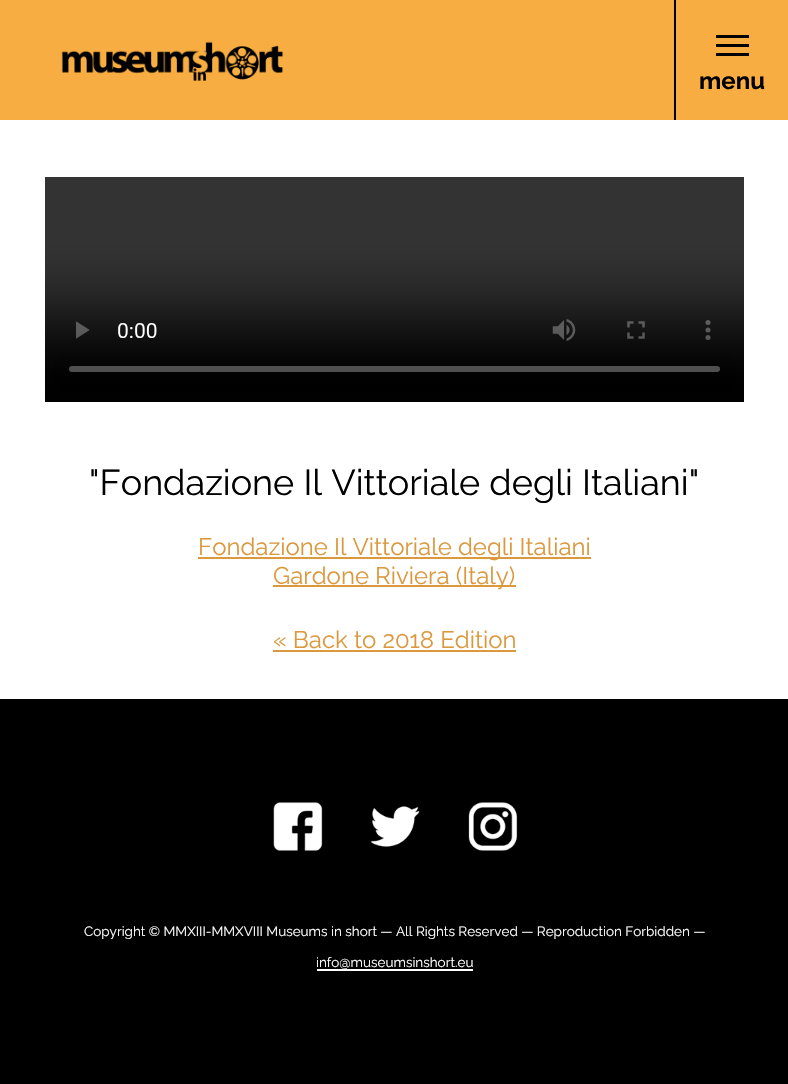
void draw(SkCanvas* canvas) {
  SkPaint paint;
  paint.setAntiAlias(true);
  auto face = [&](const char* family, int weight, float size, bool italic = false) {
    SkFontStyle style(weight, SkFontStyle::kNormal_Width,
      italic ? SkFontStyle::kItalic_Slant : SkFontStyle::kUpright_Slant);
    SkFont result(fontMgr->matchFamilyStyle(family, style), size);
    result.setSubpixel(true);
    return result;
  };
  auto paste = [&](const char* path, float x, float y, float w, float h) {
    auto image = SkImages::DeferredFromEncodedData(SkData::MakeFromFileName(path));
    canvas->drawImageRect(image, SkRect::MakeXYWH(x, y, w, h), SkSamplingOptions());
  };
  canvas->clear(0xff000000);
  paint.setColor(0xfff8ad42);
  canvas->drawRect(SkRect::MakeXYWH(0, 0, 788, 120), paint);
  paste("img/1.png", 61, 41, 223, 40);
  {
    const struct { float x, y, w, h; SkColor color; } items[] = {
      {674, 0, 2, 120, 0xff000000},
      {716, 44, 33, 3, 0xff000000},
      {716, 35, 33, 3, 0xff000000},
      {716, 53, 33, 3, 0xff000000},
      {0, 120, 788, 579, 0xffffffff},
    };
    for (auto [x, y, w, h, color] : items) {
      paint.setColor(color);
      canvas->drawRect(SkRect::MakeXYWH(x, y, w, h), paint);
    }
  }
  paste("img/2.png", 45, 177, 699, 225);
  {
    const struct { float x, y, w, h; SkColor color; } items[] = {
      {198, 557, 393, 2, 0xffdb983d},
      {273, 585, 243, 2, 0xffdb983d},
      {273, 650, 243, 2, 0xffdb983d},
    };
    for (auto [x, y, w, h, color] : items) {
      paint.setColor(color);
      canvas->drawRect(SkRect::MakeXYWH(x, y, w, h), paint);
    }
  }
  paste("img/3.png", 273, 802, 50, 49);
  paste("img/4.png", 371, 806, 49, 41);
  paste("img/5.png", 468, 802, 50, 49);
  paint.setColor(0xffffffff);
  canvas->drawRect(SkRect::MakeXYWH(317, 969, 156, 2), paint);
  auto f0 = face("Raleway", 700, 24);
  paint.setColor(0xff000000);
  canvas->drawString("menu", 699, 89, f0, paint);
  auto f1 = face("Raleway", 400, 36);
  canvas->drawString("\"Fondazione Il Vittoriale degli Italiani\"", 89, 495, f1, paint);
  auto f2 = face("Raleway", 400, 24);
  paint.setColor(0xffdb983d);
  {
    const struct { const char* s; float x, y; } items[] = {
      {"Fondazione Il Vittoriale degli Italiani", 198, 555},
      {"Gardone Riviera (Italy)", 273, 584},
      {"« Back to 2018 Edition", 273, 648},
    };
    for (auto [s, x, y] : items) {
      canvas->drawString(s, x, y, f2, paint);
    }
  }
  auto f3 = face("Raleway", 400, 13.5f);
  paint.setColor(0xffffffff);
  canvas->drawString("Copyright © MMXIII-MMXVIII Museums in short — All Rights Reserved — Reproduction Forbidden —", 84, 936, f3, paint);
  canvas->drawString("info@museumsinshort.eu", 316, 967, f3, paint);
}
